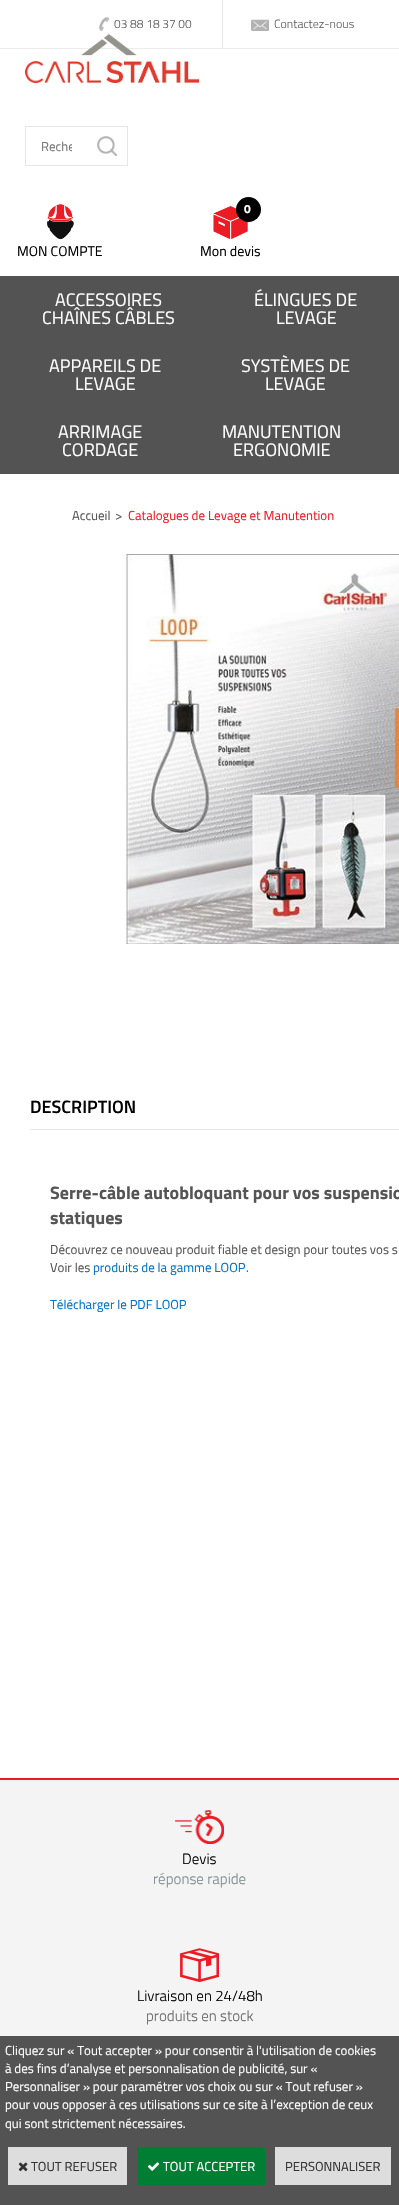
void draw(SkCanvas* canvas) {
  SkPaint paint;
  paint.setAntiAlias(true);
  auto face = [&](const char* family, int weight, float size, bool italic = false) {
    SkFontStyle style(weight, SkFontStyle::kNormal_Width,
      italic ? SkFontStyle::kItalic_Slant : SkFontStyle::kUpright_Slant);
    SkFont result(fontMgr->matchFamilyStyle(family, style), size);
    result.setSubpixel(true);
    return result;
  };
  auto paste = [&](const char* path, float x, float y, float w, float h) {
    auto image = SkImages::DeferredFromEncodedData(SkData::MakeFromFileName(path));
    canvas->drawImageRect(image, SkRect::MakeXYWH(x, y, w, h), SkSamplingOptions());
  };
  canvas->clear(0xffffffff);
  paint.setColor(0xffededed);
  canvas->drawRect(SkRect::MakeXYWH(0, 48, 399, 1), paint);
  paste("img/1.png", 99, 17, 10, 14);
  paste("img/2.png", 251, 19, 18, 12);
  paint.setColor(0xffe8e8e8);
  canvas->drawRect(SkRect::MakeXYWH(222, 0, 1, 48), paint);
  paste("img/3.png", 25, 34, 174, 49);
  {
    const struct { float x, y, w, h; SkColor color; } items[] = {
      {25, 126, 103, 1, 0xffe6e6e6},
      {25, 165, 62, 1, 0xffe6e6e6},
      {25, 126, 1, 40, 0xffe6e6e6},
    };
    for (auto [x, y, w, h, color] : items) {
      paint.setColor(color);
      canvas->drawRect(SkRect::MakeXYWH(x, y, w, h), paint);
    }
  }
  paste("img/4.png", 97, 136, 20, 20);
  canvas->drawRect(SkRect::MakeXYWH(127, 126, 1, 40), paint);
  canvas->drawRect(SkRect::MakeXYWH(87, 165, 41, 1), paint);
  paste("img/5.png", 47, 204, 27, 35);
  paste("img/6.png", 213, 206, 35, 33);
  paint.setColor(0xff000000);
  canvas->drawCircle(248.5f, 209.5f, 12.5f, paint);
  paint.setColor(0xff535353);
  canvas->drawRect(SkRect::MakeXYWH(0, 276, 399, 198), paint);
  paste("img/7.png", 125, 554, 274, 390);
  {
    const struct { float x, y, w, h; SkColor color; } items[] = {
      {30, 1129, 369, 1, 0xffe8e8e8},
      {0, 1780, 399, 256, 0xfff4f4f4},
      {0, 1778, 399, 2, 0xffed1c24},
    };
    for (auto [x, y, w, h, color] : items) {
      paint.setColor(color);
      canvas->drawRect(SkRect::MakeXYWH(x, y, w, h), paint);
    }
  }
  paste("img/8.png", 175, 1810, 49, 34);
  paste("img/9.png", 180, 1948, 39, 34);
  paint.setColor(0xff535353);
  canvas->drawRect(SkRect::MakeXYWH(0, 2036, 399, 169), paint);
  paint.setColor(0xffdddddd);
  canvas->drawRect(SkRect::MakeXYWH(8, 2147, 119, 38), paint);
  paste("img/10.png", 18, 2162, 10, 10);
  paint.setColor(0xff007e33);
  canvas->drawRect(SkRect::MakeXYWH(137, 2147, 128, 38), paint);
  paste("img/11.png", 147, 2162, 13, 9);
  paint.setColor(0xffdddddd);
  canvas->drawRect(SkRect::MakeXYWH(275, 2147, 116, 38), paint);
  auto f0 = face("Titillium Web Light", 300, 12);
  paint.setColor(0xff616161);
  canvas->drawString("03 88 18 37 00", 114, 28, f0, paint);
  canvas->drawString("Contactez-nous", 274, 28, f0, paint);
  canvas->save();
  canvas->clipRect(SkRect::MakeXYWH(41, 136, 31, 20));
  auto f1 = face("Titillium Web", 400, 13);
  paint.setColor(0xff757575);
  canvas->drawString("Reche", 41, 151, f1, paint);
  canvas->restore();
  auto f2 = face("Titillium Web", 400, 14);
  paint.setColor(0xff010101);
  canvas->drawString("MON COMPTE", 17, 256, f2, paint);
  auto f3 = face("Titillium Web", 700, 12);
  paint.setColor(0xffffffff);
  canvas->drawString("0", 244, 213, f3, paint);
  paint.setColor(0xff010101);
  canvas->drawString("Mon devis", 200, 256, f2, paint);
  auto f4 = face("Titillium Web", 400, 18);
  paint.setColor(0xffffffff);
  {
    const struct { const char* s; float x, y; } items[] = {
      {"ACCESSOIRES", 55, 306},
      {"CHAÎNES CÂBLES", 42, 324},
      {"ÉLINGUES DE", 254, 306},
      {"LEVAGE", 276, 324},
      {"APPAREILS DE", 49, 372},
      {"LEVAGE", 75, 390},
      {"SYSTÈMES DE", 241, 372},
      {"LEVAGE", 265, 390},
      {"ARRIMAGE", 58, 438},
      {"CORDAGE", 62, 456},
      {"MANUTENTION", 222, 438},
      {"ERGONOMIE", 233, 456},
    };
    for (auto [s, x, y] : items) {
      canvas->drawString(s, x, y, f4, paint);
    }
  }
  paint.setColor(0xff555555);
  canvas->drawString("Accueil", 72, 520, f1, paint);
  canvas->drawString(">", 115, 520, f1, paint);
  paint.setColor(0xffed1c24);
  canvas->drawString("Catalogues de Levage et Manutention", 128, 520, f1, paint);
  auto f5 = face("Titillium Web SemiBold", 600, 18);
  paint.setColor(0xff010101);
  canvas->drawString("DESCRIPTION", 30, 1113, f5, paint);
  auto f6 = face("Titillium Web", 700, 18);
  paint.setColor(0xff555555);
  canvas->drawString("Serre-câble autobloquant pour vos suspensio", 50, 1199, f6, paint);
  canvas->drawString("statiques", 50, 1224, f6, paint);
  canvas->drawString("Découvrez ce nouveau produit fiable et design pour toutes vos s", 50, 1254, f1, paint);
  canvas->drawString("Voir les", 50, 1272, f1, paint);
  paint.setColor(0xff0074c8);
  canvas->drawString("produits de la gamme LOOP", 93, 1272, f1, paint);
  paint.setColor(0xff555555);
  canvas->drawString(".", 246, 1272, f1, paint);
  paint.setColor(0xff0074c8);
  canvas->drawString("Télécharger le PDF LOOP", 50, 1309, f1, paint);
  auto f7 = face("Titillium Web Light", 300, 15);
  paint.setColor(0xff010101);
  canvas->drawString("Devis", 182, 1864, f7, paint);
  paint.setColor(0xff7e8c8d);
  canvas->drawString("réponse rapide", 153, 1884, f7, paint);
  paint.setColor(0xff010101);
  canvas->drawString("Livraison en 24/48h", 137, 2001, f7, paint);
  paint.setColor(0xff696969);
  canvas->drawString("produits en stock", 146, 2021, f7, paint);
  paint.setColor(0xffffffff);
  {
    const struct { const char* s; float x, y; } items[] = {
      {"Cliquez sur « Tout accepter » pour consentir à l'utilisation de cookies", 5, 2055},
      {"à des fins d’analyse et personnalisation de publicité, sur «", 5, 2073},
      {"Personnaliser » pour paramétrer vos choix ou sur « Tout refuser »", 5, 2091},
      {"pour vous opposer à ces utilisations sur ce site à l’exception de ceux", 5, 2109},
      {"qui sont strictement nécessaires.", 5, 2128},
    };
    for (auto [s, x, y] : items) {
      canvas->drawString(s, x, y, f1, paint);
    }
  }
  paint.setColor(0xff333333);
  canvas->drawString("TOUT REFUSER", 31, 2171, f1, paint);
  paint.setColor(0xffffffff);
  canvas->drawString("TOUT ACCEPTER", 163, 2171, f1, paint);
  paint.setColor(0xff333333);
  canvas->drawString("PERSONNALISER", 285, 2171, f1, paint);
}
